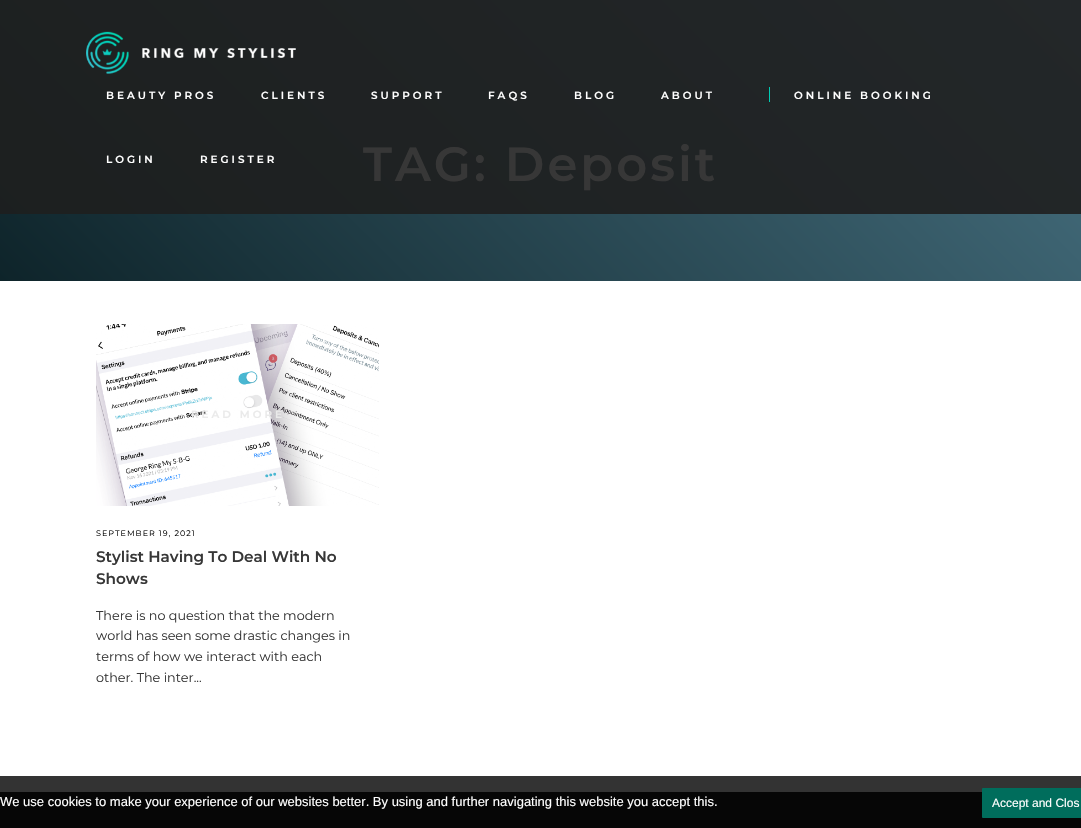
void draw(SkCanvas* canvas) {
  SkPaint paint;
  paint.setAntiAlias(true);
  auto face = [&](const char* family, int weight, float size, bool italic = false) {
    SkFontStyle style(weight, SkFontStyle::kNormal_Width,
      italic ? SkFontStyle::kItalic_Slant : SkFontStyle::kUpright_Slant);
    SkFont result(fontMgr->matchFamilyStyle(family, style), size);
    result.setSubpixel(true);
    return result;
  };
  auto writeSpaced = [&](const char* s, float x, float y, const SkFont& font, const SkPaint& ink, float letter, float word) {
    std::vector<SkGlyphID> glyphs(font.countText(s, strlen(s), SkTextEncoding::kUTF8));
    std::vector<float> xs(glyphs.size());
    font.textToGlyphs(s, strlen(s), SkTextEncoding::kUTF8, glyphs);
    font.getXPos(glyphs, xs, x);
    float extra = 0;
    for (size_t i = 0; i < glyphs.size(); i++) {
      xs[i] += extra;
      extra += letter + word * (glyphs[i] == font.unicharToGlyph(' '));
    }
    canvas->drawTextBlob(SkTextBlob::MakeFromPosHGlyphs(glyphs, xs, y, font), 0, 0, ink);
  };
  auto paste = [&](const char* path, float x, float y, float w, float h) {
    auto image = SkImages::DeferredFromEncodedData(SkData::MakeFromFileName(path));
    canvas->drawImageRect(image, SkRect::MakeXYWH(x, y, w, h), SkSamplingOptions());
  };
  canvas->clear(0xffffffff);
  paint.setColor(0xff333333);
  canvas->drawRect(SkRect::MakeXYWH(0, 776, 1081, 16), paint);
  {
    const SkColor colors[] = {0xff1c1f1f, 0xff232729};
    const float stops[] = {0, 1};
    const SkPoint ends[] = {{198, 479}, {883, -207}};
    paint.setShader(SkGradientShader::MakeLinear(ends, colors, stops, 2, SkTileMode::kClamp));
    paint.setAlpha(255);
  }
  canvas->drawRect(SkRect::MakeXYWH(0, 0, 1081, 214), paint);
  paste("img/1.png", 86, 31, 210, 43);
  paint.setShader(nullptr);
  paint.setColor(0xff00cab3);
  canvas->drawRect(SkRect::MakeXYWH(769, 87, 1, 15), paint);
  {
    const SkColor colors[] = {0xff0e242a, 0xff487282};
    const float stops[] = {0, 1};
    const SkPoint ends[] = {{198, 479}, {883, -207}};
    paint.setShader(SkGradientShader::MakeLinear(ends, colors, stops, 2, SkTileMode::kClamp));
    paint.setAlpha(255);
  }
  canvas->drawRect(SkRect::MakeXYWH(0, 214, 1081, 67), paint);
  paste("img/2.png", 96, 324, 283, 182);
  paint.setShader(nullptr);
  paint.setColor(0xff060606);
  canvas->drawRect(SkRect::MakeXYWH(0, 792, 1081, 36), paint);
  paint.setColor(0xff006d5c);
  canvas->drawRoundRect(SkRect::MakeXYWH(982, 788, 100, 30), 1, 1, paint);
  auto f0 = face("Montserrat", 600, 10.4f);
  paint.setColor(0xffffffff);
  {
    const struct { const char* s; float x, y; } items[] = {
      {"BEAUTY PROS", 106, 99},
      {"CLIENTS", 261, 99},
      {"SUPPORT", 371, 99},
      {"FAQS", 488, 99},
      {"BLOG", 574, 99},
      {"ABOUT", 661, 99},
      {"ONLINE BOOKING", 794, 99},
      {"LOGIN", 106, 163},
      {"REGISTER", 200, 163},
    };
    for (auto [s, x, y] : items) {
      writeSpaced(s, x, y, f0, paint, 3, 0);
    }
  }
  auto f1 = face("Montserrat", 600, 48);
  paint.setColor(0xff373737);
  writeSpaced("TAG: Deposit", 363, 181, f1, paint, 3, 0);
  paint.setColor(0xffeaeaea);
  writeSpaced("READ MORE", 191, 418, f0, paint, 3, 0);
  auto f2 = face("Montserrat", 400, 8);
  paint.setColor(0xff000000);
  writeSpaced("SEPTEMBER 19, 2021", 96, 536, f2, paint, 1, 0);
  auto f3 = face("Montserrat", 600, 15.25f);
  paint.setColor(0xff373737);
  canvas->drawString("Stylist Having To Deal With No", 96, 562, f3, paint);
  canvas->drawString("Shows", 96, 584, f3, paint);
  auto f4 = face("Montserrat", 400, 12.75f);
  {
    const struct { const char* s; float x, y; } items[] = {
      {"There is no question that the modern", 96, 620},
      {"world has seen some drastic changes in", 96, 640},
      {"terms of how we interact with each", 96, 661},
      {"other. The inter...", 96, 682},
    };
    for (auto [s, x, y] : items) {
      canvas->drawString(s, x, y, f4, paint);
    }
  }
  auto f5 = face("Liberation Sans", 400, 13);
  paint.setColor(0xffffffff);
  canvas->drawString("We use cookies to make your experience of our websites better. By using and further navigating this website you accept this.", 0, 806, f5, paint);
  auto f6 = face("Liberation Sans", 400, 12);
  canvas->drawString("Accept and Clos", 992, 807, f6, paint);
}
